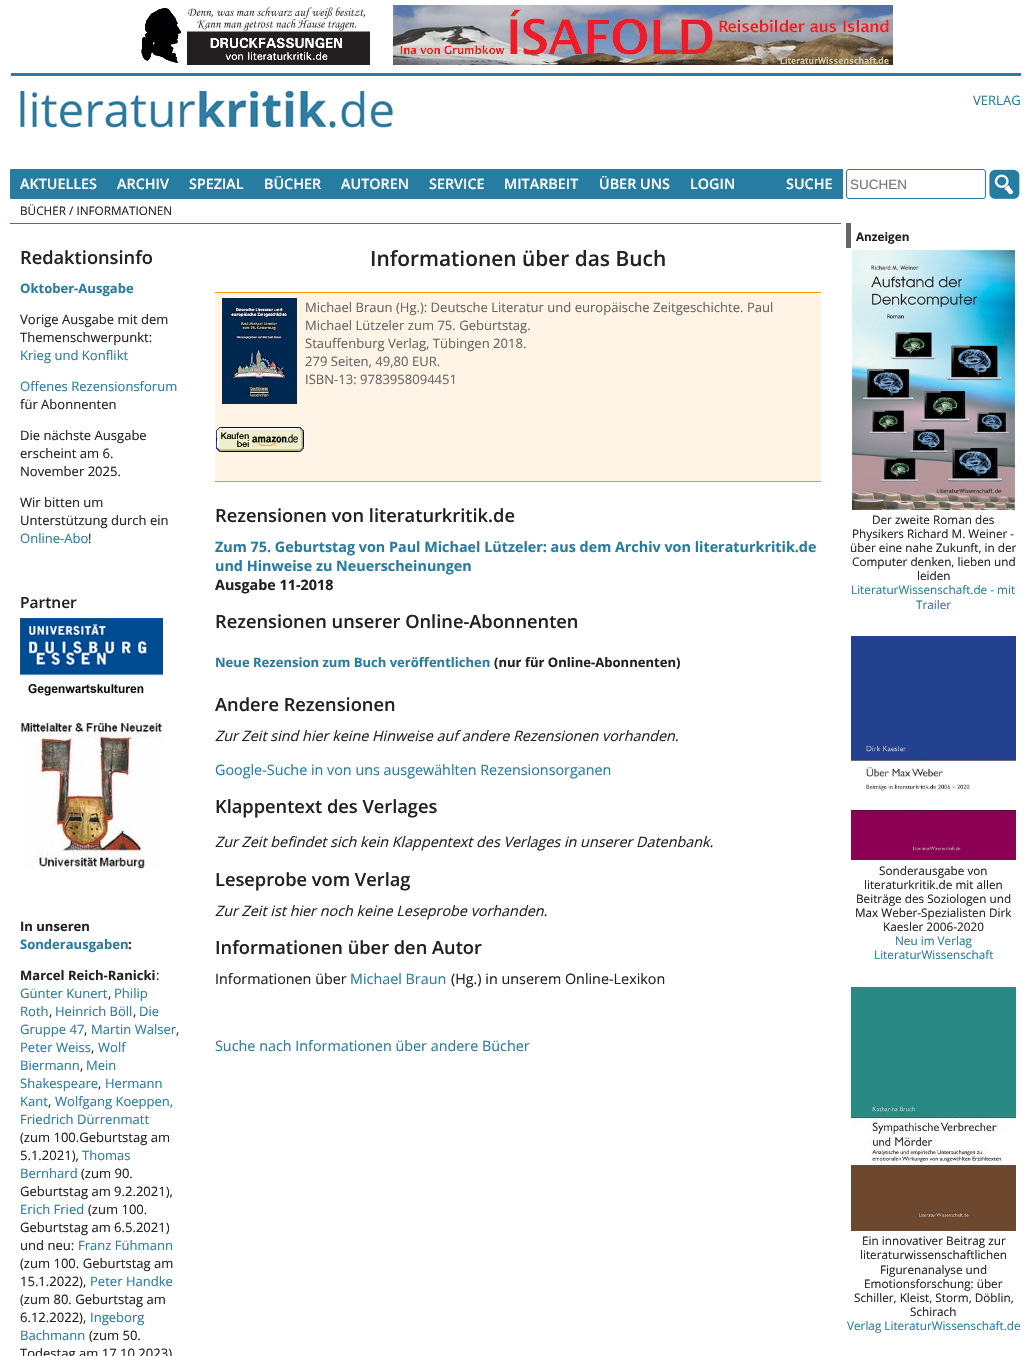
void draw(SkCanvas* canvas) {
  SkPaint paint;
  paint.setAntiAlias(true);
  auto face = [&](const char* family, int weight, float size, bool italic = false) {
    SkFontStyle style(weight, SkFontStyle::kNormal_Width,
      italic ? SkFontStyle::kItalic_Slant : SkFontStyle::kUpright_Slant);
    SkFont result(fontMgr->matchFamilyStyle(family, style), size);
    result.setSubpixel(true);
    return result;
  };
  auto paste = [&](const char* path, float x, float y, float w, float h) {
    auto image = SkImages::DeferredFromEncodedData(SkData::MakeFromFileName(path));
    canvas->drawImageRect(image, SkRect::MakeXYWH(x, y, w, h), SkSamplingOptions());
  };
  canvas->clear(0xffffffff);
  paste("img/1.png", 141, 7, 229, 58);
  paste("img/2.png", 393, 5, 500, 60);
  paint.setColor(0xff277ca1);
  canvas->drawRect(SkRect::MakeXYWH(11, 73, 1010, 3), paint);
  paste("img/3.png", 20, 91, 373, 37);
  canvas->drawRoundRect(SkRect::MakeXYWH(10, 169, 1011, 30), 1, 1, paint);
  paint.setColor(0xffffffff);
  canvas->drawRect(SkRect::MakeXYWH(843, 169, 178, 30), paint);
  paint.setStroke(true);
  paint.setStrokeWidth(1);
  paint.setColor(0xff277ca1);
  canvas->drawRoundRect(SkRect::MakeXYWH(846.5f, 169.5f, 139, 29), 2.5f, 2.5f, paint);
  paste("img/4.png", 989, 169, 31, 30);
  paint.setStroke(false);
  canvas->drawRect(SkRect::MakeXYWH(10, 223, 831, 1), paint);
  paste("img/5.png", 20, 618, 143, 78);
  paste("img/6.png", 20, 723, 143, 146);
  paint.setColor(0xffff9900);
  canvas->drawRect(SkRect::MakeXYWH(215, 292, 606, 1), paint);
  paint.setColor(0xfffff4e5);
  canvas->drawRect(SkRect::MakeXYWH(215, 293, 606, 188), paint);
  paste("img/7.png", 222, 298, 75, 106);
  paste("img/8.png", 216, 427, 88, 25);
  paint.setColor(0xffff9900);
  canvas->drawRect(SkRect::MakeXYWH(215, 481, 606, 1), paint);
  paint.setColor(0xff666666);
  canvas->drawRect(SkRect::MakeXYWH(846, 223, 5, 25), paint);
  paste("img/9.png", 852, 250, 163, 260);
  paste("img/10.png", 851, 636, 165, 224);
  paste("img/11.png", 851, 987, 165, 244);
  auto f0 = face("Open Sans", 400, 13.05f);
  paint.setColor(0xff277ca1);
  canvas->drawString("VERLAG", 973, 105, f0, paint);
  auto f1 = face("Open Sans", 600, 14.35f);
  paint.setColor(0xffffffff);
  {
    const struct { const char* s; float x, y; } items[] = {
      {"AKTUELLES", 20, 189},
      {"ARCHIV", 117, 189},
      {"SPEZIAL", 189, 189},
      {"BÜCHER", 264, 189},
      {"AUTOREN", 341, 189},
      {"SERVICE", 429, 189},
      {"MITARBEIT", 504, 189},
      {"ÜBER UNS", 599, 189},
      {"LOGIN", 690, 189},
      {"SUCHE", 786, 189},
    };
    for (auto [s, x, y] : items) {
      canvas->drawString(s, x, y, f1, paint);
    }
  }
  auto f2 = face("Liberation Sans", 400, 13.5f);
  paint.setColor(0xff757575);
  canvas->drawString("SUCHEN", 850, 189, f2, paint);
  auto f3 = face("Open Sans", 400, 11.75f);
  paint.setColor(0xff222222);
  canvas->drawString("BÜCHER / INFORMATIONEN", 20, 215, f3, paint);
  auto f4 = face("Open Sans", 600, 18.25f);
  canvas->drawString("Redaktionsinfo", 20, 264, f4, paint);
  auto f5 = face("Open Sans", 700, 13.05f);
  paint.setColor(0xff277ca1);
  canvas->drawString("Oktober-Ausgabe", 20, 293, f5, paint);
  paint.setColor(0xff222222);
  canvas->drawString("Vorige Ausgabe mit dem", 20, 324, f0, paint);
  canvas->drawString("Themenschwerpunkt:", 20, 342, f0, paint);
  paint.setColor(0xff277ca1);
  canvas->drawString("Krieg und Konflikt", 20, 360, f0, paint);
  canvas->drawString("Offenes Rezensionsforum", 20, 391, f0, paint);
  paint.setColor(0xff222222);
  {
    const struct { const char* s; float x, y; } items[] = {
      {"für Abonnenten", 20, 409},
      {"Die nächste Ausgabe", 20, 440},
      {"erscheint am 6.", 20, 458},
      {"November 2025.", 20, 476},
      {"Wir bitten um", 20, 507},
      {"Unterstützung durch ein", 20, 525},
    };
    for (auto [s, x, y] : items) {
      canvas->drawString(s, x, y, f0, paint);
    }
  }
  paint.setColor(0xff277ca1);
  canvas->drawString("Online-Abo", 20, 543, f0, paint);
  paint.setColor(0xff222222);
  canvas->drawString("!", 88, 543, f0, paint);
  auto f6 = face("Open Sans", 600, 15.5f);
  canvas->drawString("Partner", 20, 608, f6, paint);
  canvas->drawString("In unseren", 20, 931, f5, paint);
  paint.setColor(0xff277ca1);
  canvas->drawString("Sonderausgaben", 20, 949, f5, paint);
  paint.setColor(0xff222222);
  canvas->drawString(":", 128, 949, f5, paint);
  canvas->drawString("Marcel Reich-Ranicki", 20, 980, f5, paint);
  canvas->drawString(":", 156, 980, f0, paint);
  paint.setColor(0xff277ca1);
  canvas->drawString("Günter Kunert", 20, 998, f0, paint);
  paint.setColor(0xff222222);
  canvas->drawString(",", 108, 998, f0, paint);
  paint.setColor(0xff277ca1);
  canvas->drawString("Philip", 114, 998, f0, paint);
  canvas->drawString("Roth", 20, 1016, f0, paint);
  paint.setColor(0xff222222);
  canvas->drawString(",", 49, 1016, f0, paint);
  paint.setColor(0xff277ca1);
  canvas->drawString("Heinrich Böll", 55, 1016, f0, paint);
  paint.setColor(0xff222222);
  canvas->drawString(",", 133, 1016, f0, paint);
  paint.setColor(0xff277ca1);
  canvas->drawString("Die", 139, 1016, f0, paint);
  canvas->drawString("Gruppe 47", 20, 1034, f0, paint);
  paint.setColor(0xff222222);
  canvas->drawString(",", 84, 1034, f0, paint);
  paint.setColor(0xff277ca1);
  canvas->drawString("Martin Walser", 91, 1034, f0, paint);
  paint.setColor(0xff222222);
  canvas->drawString(",", 176, 1034, f0, paint);
  paint.setColor(0xff277ca1);
  canvas->drawString("Peter Weiss", 20, 1052, f0, paint);
  paint.setColor(0xff222222);
  canvas->drawString(",", 91, 1052, f0, paint);
  paint.setColor(0xff277ca1);
  canvas->drawString("Wolf", 98, 1052, f0, paint);
  canvas->drawString("Biermann", 20, 1070, f0, paint);
  paint.setColor(0xff222222);
  canvas->drawString(",", 80, 1070, f0, paint);
  paint.setColor(0xff277ca1);
  canvas->drawString("Mein", 86, 1070, f0, paint);
  canvas->drawString("Shakespeare", 20, 1088, f0, paint);
  paint.setColor(0xff222222);
  canvas->drawString(",", 98, 1088, f0, paint);
  paint.setColor(0xff277ca1);
  canvas->drawString("Hermann", 105, 1088, f0, paint);
  canvas->drawString("Kant", 20, 1106, f0, paint);
  paint.setColor(0xff222222);
  canvas->drawString(",", 48, 1106, f0, paint);
  paint.setColor(0xff277ca1);
  canvas->drawString("Wolfgang Koeppen,", 55, 1106, f0, paint);
  canvas->drawString("Friedrich Dürrenmatt", 20, 1124, f0, paint);
  paint.setColor(0xff222222);
  canvas->drawString("(zum 100.Geburtstag am", 20, 1142, f0, paint);
  canvas->drawString("5.1.2021),", 20, 1160, f0, paint);
  paint.setColor(0xff277ca1);
  canvas->drawString("Thomas", 82, 1160, f0, paint);
  canvas->drawString("Bernhard", 20, 1178, f0, paint);
  paint.setColor(0xff222222);
  canvas->drawString("(zum 90.", 81, 1178, f0, paint);
  canvas->drawString("Geburtstag am 9.2.2021),", 20, 1196, f0, paint);
  paint.setColor(0xff277ca1);
  canvas->drawString("Erich Fried", 20, 1214, f0, paint);
  paint.setColor(0xff222222);
  {
    const struct { const char* s; float x, y; } items[] = {
      {"(zum 100.", 88, 1214},
      {"Geburtstag am 6.5.2021)", 20, 1232},
      {"und neu:", 20, 1250},
    };
    for (auto [s, x, y] : items) {
      canvas->drawString(s, x, y, f0, paint);
    }
  }
  paint.setColor(0xff277ca1);
  canvas->drawString("Franz Fühmann", 78, 1250, f0, paint);
  paint.setColor(0xff222222);
  canvas->drawString("(zum 100. Geburtstag am", 20, 1268, f0, paint);
  canvas->drawString("15.1.2022),", 20, 1286, f0, paint);
  paint.setColor(0xff277ca1);
  canvas->drawString("Peter Handke", 90, 1286, f0, paint);
  paint.setColor(0xff222222);
  canvas->drawString("(zum 80. Geburtstag am", 20, 1304, f0, paint);
  canvas->drawString("6.12.2022),", 20, 1322, f0, paint);
  paint.setColor(0xff277ca1);
  canvas->drawString("Ingeborg", 90, 1322, f0, paint);
  canvas->drawString("Bachmann", 20, 1340, f0, paint);
  paint.setColor(0xff222222);
  canvas->drawString("(zum 50.", 89, 1340, f0, paint);
  canvas->drawString("Todestag am 17.10.2023)", 20, 1358, f0, paint);
  auto f7 = face("Open Sans", 600, 20.9f);
  canvas->drawString("Informationen über das Buch", 370, 266, f7, paint);
  paint.setColor(0xff666666);
  {
    const struct { const char* s; float x, y; } items[] = {
      {"Michael Braun (Hg.): Deutsche Literatur und europäische Zeitgeschichte. Paul", 305, 312},
      {"Michael Lützeler zum 75. Geburtstag.", 305, 330},
      {"Stauffenburg Verlag, Tübingen 2018.", 305, 348},
      {"279 Seiten, 49,80 EUR.", 305, 366},
      {"ISBN-13: 9783958094451", 305, 384},
    };
    for (auto [s, x, y] : items) {
      canvas->drawString(s, x, y, f0, paint);
    }
  }
  paint.setColor(0xff222222);
  canvas->drawString("Rezensionen von literaturkritik.de", 215, 522, f4, paint);
  auto f8 = face("Open Sans", 700, 14.35f);
  paint.setColor(0xff277ca1);
  canvas->drawString("Zum 75. Geburtstag von Paul Michael Lützeler: aus dem Archiv von literaturkritik.de", 215, 552, f8, paint);
  canvas->drawString("und Hinweise zu Neuerscheinungen", 215, 571, f8, paint);
  paint.setColor(0xff222222);
  canvas->drawString("Ausgabe 11-2018", 215, 590, f8, paint);
  canvas->drawString("Rezensionen unserer Online-Abonnenten", 215, 628, f4, paint);
  paint.setColor(0xff277ca1);
  canvas->drawString("Neue Rezension zum Buch veröffentlichen", 215, 667, f5, paint);
  paint.setColor(0xff222222);
  canvas->drawString("(nur für Online-Abonnenten)", 494, 667, f5, paint);
  canvas->drawString("Andere Rezensionen", 215, 711, f4, paint);
  auto f9 = face("Open Sans", 400, 14.35f, true);
  canvas->drawString("Zur Zeit sind hier keine Hinweise auf andere Rezensionen vorhanden.", 215, 741, f9, paint);
  auto f10 = face("Open Sans", 400, 14.35f);
  paint.setColor(0xff277ca1);
  canvas->drawString("Google-Suche in von uns ausgewählten Rezensionsorganen", 215, 775, f10, paint);
  paint.setColor(0xff222222);
  canvas->drawString("Klappentext des Verlages", 215, 813, f4, paint);
  canvas->drawString("Zur Zeit befindet sich kein Klappentext des Verlages in unserer Datenbank.", 215, 847, f9, paint);
  canvas->drawString("Leseprobe vom Verlag", 215, 886, f4, paint);
  canvas->drawString("Zur Zeit ist hier noch keine Leseprobe vorhanden.", 215, 916, f9, paint);
  canvas->drawString("Informationen über den Autor", 215, 954, f4, paint);
  canvas->drawString("Informationen über", 215, 984, f10, paint);
  paint.setColor(0xff277ca1);
  canvas->drawString("Michael Braun", 350, 984, f10, paint);
  paint.setColor(0xff222222);
  canvas->drawString("(Hg.) in unserem Online-Lexikon", 451, 984, f10, paint);
  paint.setColor(0xff277ca1);
  canvas->drawString("Suche nach Informationen über andere Bücher", 215, 1051, f10, paint);
  auto f11 = face("Open Sans", 700, 11.75f);
  paint.setColor(0xff222222);
  canvas->drawString("Anzeigen", 856, 241, f11, paint);
  {
    const struct { const char* s; float x, y; } items[] = {
      {"Der zweite Roman des", 872, 524},
      {"Physikers Richard M. Weiner -", 852, 538},
      {"über eine nahe Zukunft, in der", 850, 552},
      {"Computer denken, lieben und", 852, 566},
      {"leiden", 917, 580},
    };
    for (auto [s, x, y] : items) {
      canvas->drawString(s, x, y, f3, paint);
    }
  }
  paint.setColor(0xff277ca1);
  canvas->drawString("LiteraturWissenschaft.de - mit", 851, 594, f3, paint);
  canvas->drawString("Trailer", 916, 609, f3, paint);
  paint.setColor(0xff222222);
  {
    const struct { const char* s; float x, y; } items[] = {
      {"Sonderausgabe von", 879, 875},
      {"literaturkritik.de mit allen", 864, 889},
      {"Beiträge des Soziologen und", 856, 903},
      {"Max Weber-Spezialisten Dirk", 855, 917},
      {"Kaesler 2006-2020", 883, 931},
    };
    for (auto [s, x, y] : items) {
      canvas->drawString(s, x, y, f3, paint);
    }
  }
  paint.setColor(0xff277ca1);
  canvas->drawString("Neu im Verlag", 895, 945, f3, paint);
  canvas->drawString("LiteraturWissenschaft", 874, 959, f3, paint);
  paint.setColor(0xff222222);
  {
    const struct { const char* s; float x, y; } items[] = {
      {"Ein innovativer Beitrag zur", 862, 1245},
      {"literaturwissenschaftlichen", 860, 1259},
      {"Figurenanalyse und", 880, 1274},
      {"Emotionsforschung: über", 864, 1288},
      {"Schiller, Kleist, Storm, Döblin,", 854, 1302},
      {"Schirach", 910, 1316},
    };
    for (auto [s, x, y] : items) {
      canvas->drawString(s, x, y, f3, paint);
    }
  }
  paint.setColor(0xff277ca1);
  canvas->drawString("Verlag LiteraturWissenschaft.de", 847, 1330, f3, paint);
}
